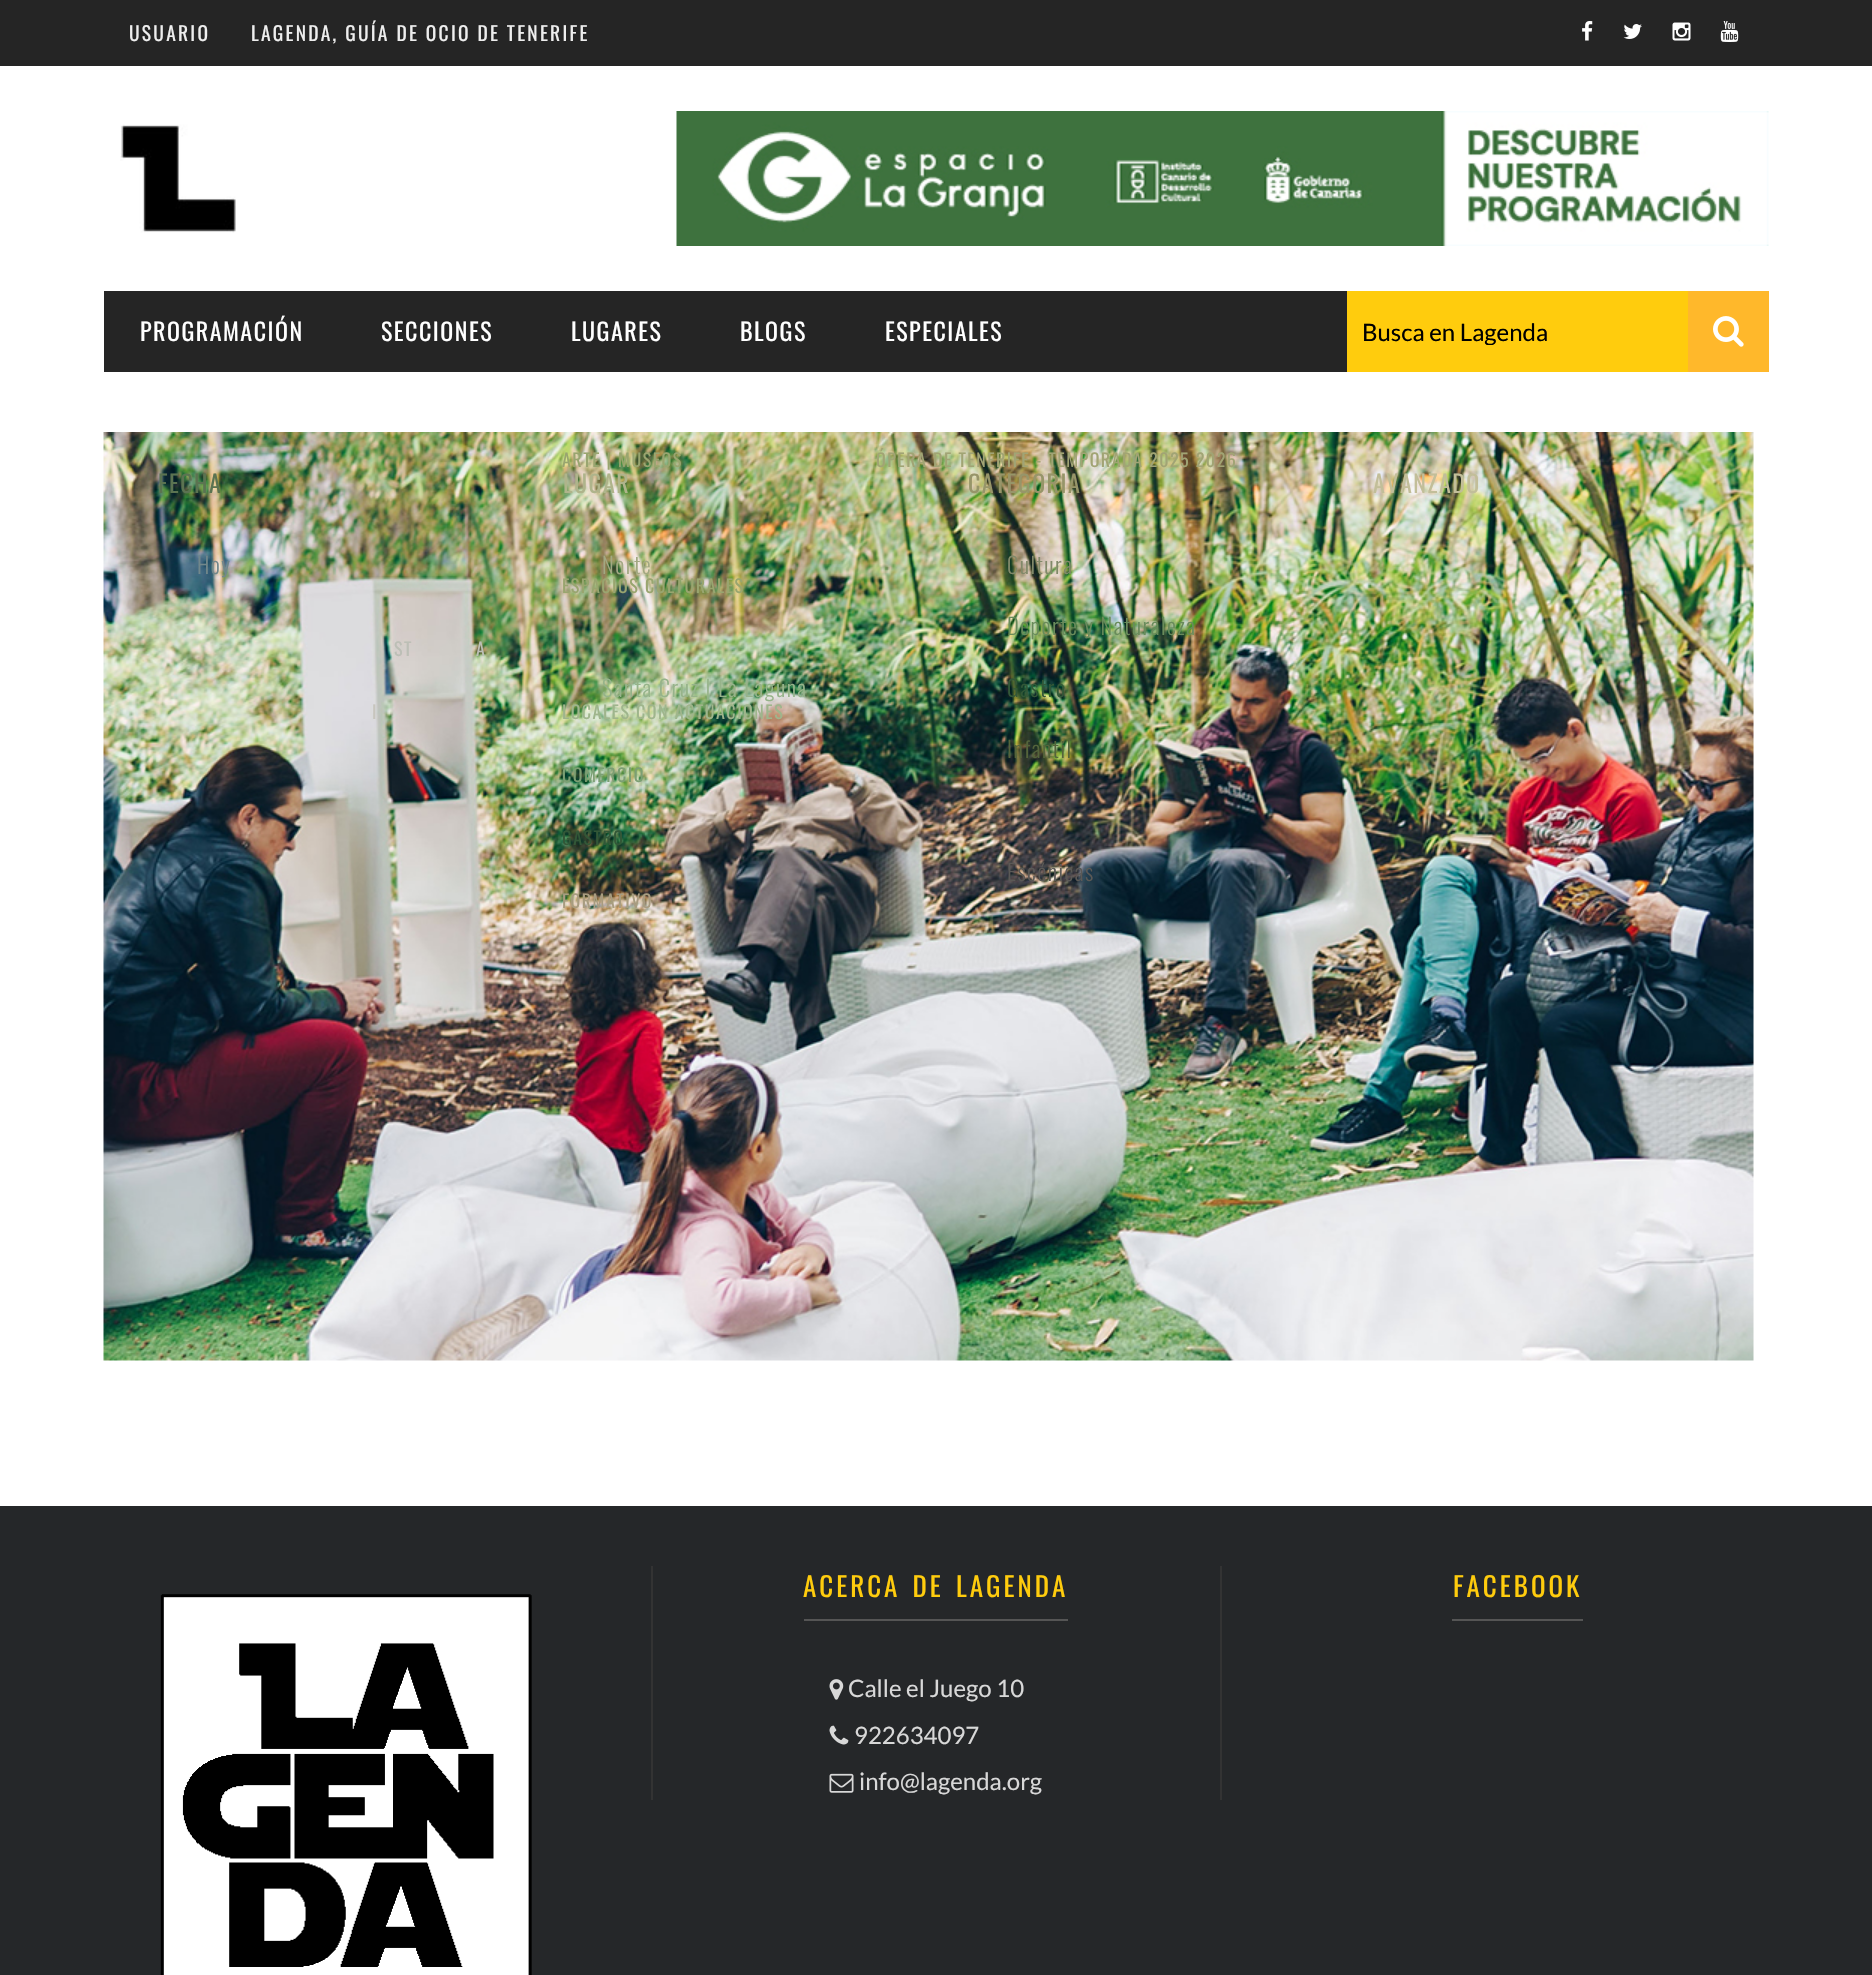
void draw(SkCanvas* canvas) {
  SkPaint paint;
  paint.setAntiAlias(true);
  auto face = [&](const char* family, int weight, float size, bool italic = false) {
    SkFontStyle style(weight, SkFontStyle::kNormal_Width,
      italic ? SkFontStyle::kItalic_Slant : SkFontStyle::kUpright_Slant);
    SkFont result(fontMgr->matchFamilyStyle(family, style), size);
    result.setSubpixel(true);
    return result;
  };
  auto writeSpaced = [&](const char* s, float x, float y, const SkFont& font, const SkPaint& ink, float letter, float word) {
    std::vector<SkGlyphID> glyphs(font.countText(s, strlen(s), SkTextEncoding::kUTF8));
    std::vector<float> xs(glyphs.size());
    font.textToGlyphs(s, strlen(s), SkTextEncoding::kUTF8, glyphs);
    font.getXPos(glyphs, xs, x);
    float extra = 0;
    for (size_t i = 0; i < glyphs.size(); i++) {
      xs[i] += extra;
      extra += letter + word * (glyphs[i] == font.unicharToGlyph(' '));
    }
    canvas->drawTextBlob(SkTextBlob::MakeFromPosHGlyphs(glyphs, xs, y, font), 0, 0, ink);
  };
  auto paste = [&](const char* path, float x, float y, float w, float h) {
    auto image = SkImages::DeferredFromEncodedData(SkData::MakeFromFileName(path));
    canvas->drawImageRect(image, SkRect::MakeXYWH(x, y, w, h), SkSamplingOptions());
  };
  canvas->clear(0xffffffff);
  paint.setColor(0xff252525);
  canvas->drawRect(SkRect::MakeXYWH(0, 0, 1872, 66), paint);
  paste("img/1.png", 1582, 21, 11, 20);
  paste("img/2.png", 1623, 24, 19, 15);
  paste("img/3.png", 1672, 22, 19, 19);
  paste("img/4.png", 1720, 21, 19, 21);
  paste("img/5.png", 120, 124, 116, 109);
  paste("img/6.png", 676, 111, 1093, 135);
  canvas->drawRect(SkRect::MakeXYWH(104, 291, 1243, 81), paint);
  paint.setColor(0xffffb82b);
  canvas->drawRect(SkRect::MakeXYWH(1688, 291, 81, 81), paint);
  paste("img/7.png", 1713, 316, 31, 31);
  paint.setColor(0xffffcc0d);
  canvas->drawRect(SkRect::MakeXYWH(1347, 291, 341, 81), paint);
  paste("img/8.png", 103, 432, 1651, 929);
  {
    const struct { float x, y, w, h; SkColor color; } items[] = {
      {0, 1506, 1872, 469, 0xff252729},
      {1220, 1566, 2, 234, 0xff333333},
      {651, 1566, 2, 234, 0xff333333},
      {804, 1619, 264, 2, 0xff555555},
    };
    for (auto [x, y, w, h, color] : items) {
      paint.setColor(color);
      canvas->drawRect(SkRect::MakeXYWH(x, y, w, h), paint);
    }
  }
  paste("img/9.png", 829, 1679, 15, 21);
  paste("img/10.png", 829, 1725, 20, 20);
  paste("img/11.png", 829, 1773, 25, 20);
  canvas->drawRect(SkRect::MakeXYWH(1452, 1619, 131, 2), paint);
  paste("img/12.png", 160, 1594, 372, 381);
  auto f0 = face("Oswald", 400, 19.5f);
  paint.setColor(0xffeeeeee);
  writeSpaced("USUARIO", 129, 41, f0, paint, 2.25f, 0);
  writeSpaced("LAGENDA, GUÍA DE OCIO DE TENERIFE", 251, 41, f0, paint, 2.25f, 0);
  auto f1 = face("Oswald", 400, 24);
  paint.setColor(0xffffffff);
  writeSpaced("PROGRAMACIÓN", 140, 341, f1, paint, 1.5f, 0);
  paint.setColor(0xff5b7351);
  writeSpaced("FECHA", 158, 493, f1, paint, 1.5f, 0);
  auto f2 = face("Oswald", 300, 22.5f);
  paint.setColor(0xff71878b);
  writeSpaced("Hoy", 197, 574, f2, paint, 1.5f, 0);
  paint.setColor(0xffafb48b);
  writeSpaced("LUGAR", 563, 493, f1, paint, 1.5f, 0);
  paint.setColor(0xffa2a882);
  writeSpaced("Norte", 602, 574, f2, paint, 1.5f, 0);
  paint.setColor(0xff96b38a);
  writeSpaced("Santa Cruz | La Laguna", 602, 697, f2, paint, 1.5f, 0);
  paint.setColor(0xff979569);
  writeSpaced("CATEGORIA", 968, 493, f1, paint, 1.5f, 0);
  paint.setColor(0xff818969);
  writeSpaced("Cultura", 1007, 574, f2, paint, 1.5f, 0);
  paint.setColor(0xff698b5b);
  writeSpaced("Deporte y Naturaleza", 1007, 635, f2, paint, 1.5f, 0);
  paint.setColor(0xff325737);
  writeSpaced("Gastro", 1007, 697, f2, paint, 1.5f, 0);
  paint.setColor(0xff54643b);
  writeSpaced("Infantil", 1007, 758, f2, paint, 1.5f, 0);
  paint.setColor(0xff5b5956);
  writeSpaced("Escénicas", 1007, 881, f2, paint, 1.5f, 0);
  paint.setColor(0xffc2be99);
  writeSpaced("AVANZADO", 1373, 493, f1, paint, 1.5f, 0);
  paint.setColor(0xffffffff);
  writeSpaced("SECCIONES", 381, 341, f1, paint, 1.5f, 0);
  auto f3 = face("Oswald", 400, 18);
  paint.setColor(0xffbcbfb6);
  writeSpaced("ST", 394, 656, f3, paint, 1.5f, 0);
  writeSpaced("A", 476, 656, f3, paint, 1.5f, 0);
  paint.setColor(0xffc7c5bd);
  writeSpaced("I", 372, 719, f3, paint, 1.5f, 0);
  paint.setColor(0xffffffff);
  writeSpaced("LUGARES", 571, 341, f1, paint, 1.5f, 0);
  paint.setColor(0xff99a56f);
  writeSpaced("ARTE | MUSEOS", 562, 467, f3, paint, 1.5f, 0);
  writeSpaced("ESPACIOS CULTURALES", 562, 593, f3, paint, 1.5f, 0);
  paint.setColor(0xff9fb58c);
  writeSpaced("LOCALES CON ACTUACIONES", 562, 719, f3, paint, 1.5f, 0);
  paint.setColor(0xff7c9f73);
  writeSpaced("COMERCIO", 562, 782, f3, paint, 1.5f, 0);
  paint.setColor(0xff325737);
  writeSpaced("GASTRO", 562, 845, f3, paint, 1.5f, 0);
  paint.setColor(0xffa89c80);
  writeSpaced("FORMATIVO", 562, 908, f3, paint, 1.5f, 0);
  paint.setColor(0xffffffff);
  writeSpaced("BLOGS", 740, 341, f1, paint, 1.5f, 0);
  writeSpaced("ESPECIALES", 885, 341, f1, paint, 1.5f, 0);
  paint.setColor(0xffa1a474);
  writeSpaced("ÓPERA DE TENERIFE - TEMPORADA 2025 2026", 876, 467, f3, paint, 1.5f, 0);
  canvas->save();
  canvas->clipRect(SkRect::MakeXYWH(1362, 317, 392, 28));
  auto f4 = face("Lato", 400, 24);
  paint.setColor(0xff000000);
  canvas->drawString("Busca en Lagenda", 1362, 341, f4, paint);
  canvas->restore();
  auto f5 = face("Oswald", 400, 27);
  paint.setColor(0xffffcc0d);
  writeSpaced("ACERCA DE LAGENDA", 803, 1597, f5, paint, 3, 3);
  paint.setColor(0xffd8d8d8);
  {
    const struct { const char* s; float x, y; } items[] = {
      {"Calle el Juego 10", 848, 1697},
      {"922634097", 854, 1744},
      {"info@lagenda.org", 859, 1790},
    };
    for (auto [s, x, y] : items) {
      canvas->drawString(s, x, y, f4, paint);
    }
  }
  paint.setColor(0xffffcc0d);
  writeSpaced("FACEBOOK", 1453, 1597, f5, paint, 3, 0);
}
